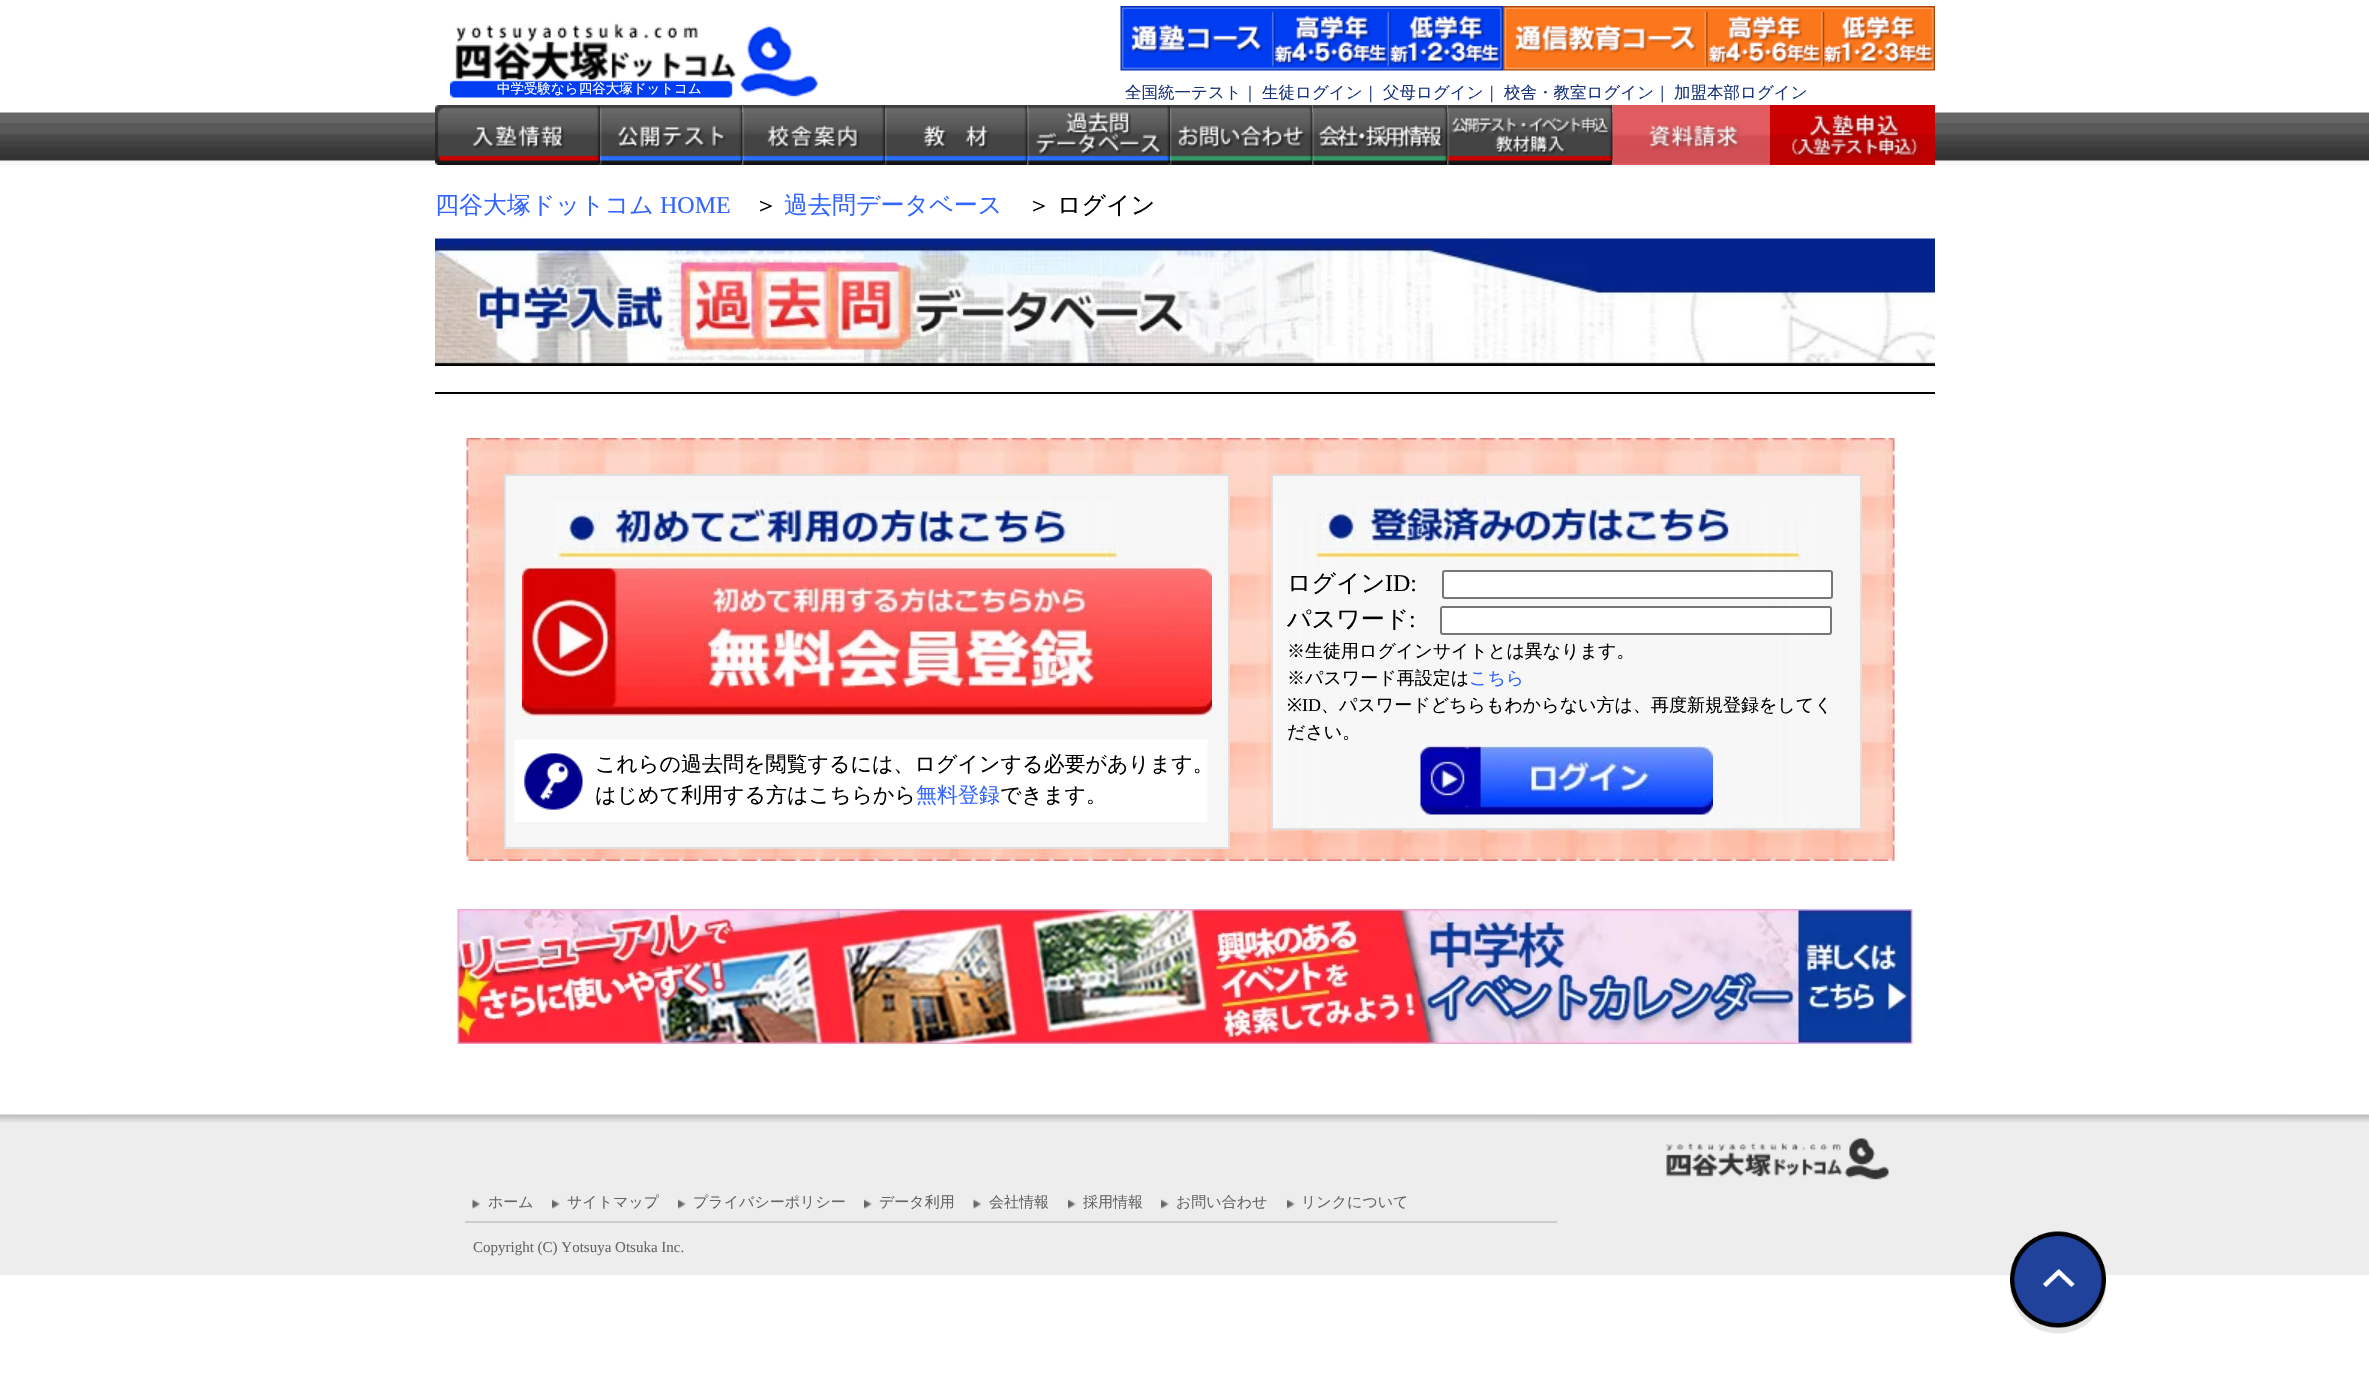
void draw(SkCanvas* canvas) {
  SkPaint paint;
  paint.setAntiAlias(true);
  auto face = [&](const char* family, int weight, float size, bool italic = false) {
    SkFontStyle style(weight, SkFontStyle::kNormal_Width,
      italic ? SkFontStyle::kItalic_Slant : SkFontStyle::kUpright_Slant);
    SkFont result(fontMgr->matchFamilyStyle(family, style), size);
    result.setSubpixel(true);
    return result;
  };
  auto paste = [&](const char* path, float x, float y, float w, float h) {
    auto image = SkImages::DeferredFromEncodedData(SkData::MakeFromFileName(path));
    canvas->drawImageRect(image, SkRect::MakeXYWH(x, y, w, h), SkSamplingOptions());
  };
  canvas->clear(0xffffffff);
  paste("img/1.png", 1120, 6, 383, 65);
  paste("img/2.png", 1503, 6, 432, 65);
  paste("img/3.png", 450, 23, 368, 75);
  paste("img/4.png", 0, 112, 2369, 53);
  paste("img/5.png", 435, 105, 165, 60);
  paste("img/6.png", 600, 105, 143, 60);
  paste("img/7.png", 742, 105, 143, 60);
  paste("img/8.png", 885, 105, 143, 60);
  paste("img/9.png", 1027, 105, 143, 60);
  paste("img/10.png", 1170, 105, 143, 60);
  paste("img/11.png", 1312, 105, 136, 60);
  paste("img/12.png", 1447, 105, 166, 60);
  paste("img/13.png", 1612, 105, 158, 60);
  paste("img/14.png", 1770, 105, 165, 60);
  paint.setColor(0xff000000);
  canvas->drawRect(SkRect::MakeXYWH(435, 392, 1500, 2), paint);
  paste("img/15.png", 435, 238, 1500, 128);
  paste("img/16.png", 466, 438, 1429, 423);
  paint.setColor(0xfff6f6f6);
  canvas->drawRect(SkRect::MakeXYWH(1273, 476, 587, 352), paint);
  paste("img/17.png", 1273, 498, 552, 330);
  paint.setStroke(true);
  paint.setStrokeWidth(2);
  paint.setColor(0xffdfdfdf);
  canvas->drawRect(SkRect::MakeXYWH(1272, 475, 589, 354), paint);
  paint.setStroke(false);
  paint.setColor(0xffffffff);
  canvas->drawRoundRect(SkRect::MakeXYWH(1443, 571, 389, 27), 2, 2, paint);
  paint.setStroke(true);
  paint.setColor(0xff767676);
  canvas->drawRoundRect(SkRect::MakeXYWH(1443, 571, 389, 27), 2, 2, paint);
  paint.setStroke(false);
  paint.setColor(0xffffffff);
  canvas->drawRoundRect(SkRect::MakeXYWH(1441, 607, 390, 27), 2, 2, paint);
  paint.setStroke(true);
  paint.setColor(0xff767676);
  canvas->drawRoundRect(SkRect::MakeXYWH(1441, 607, 390, 27), 2, 2, paint);
  paste("img/18.png", 1420, 745, 293, 70);
  paint.setStroke(false);
  paint.setColor(0xfff6f6f6);
  canvas->drawRect(SkRect::MakeXYWH(506, 476, 722, 371), paint);
  paste("img/19.png", 553, 499, 566, 61);
  paint.setStroke(true);
  paint.setColor(0xffdfdfdf);
  canvas->drawRect(SkRect::MakeXYWH(505, 475, 724, 373), paint);
  paste("img/20.png", 522, 565, 690, 151);
  paste("img/21.png", 514, 739, 694, 83);
  paste("img/22.png", 457, 909, 1456, 135);
  paint.setStroke(false);
  paint.setColor(0xffededed);
  canvas->drawRect(SkRect::MakeXYWH(0, 1122, 2369, 153), paint);
  paste("img/23.png", 0, 1114, 2369, 8);
  paste("img/24.png", 1666, 1138, 223, 42);
  paint.setColor(0xffcccccc);
  canvas->drawRect(SkRect::MakeXYWH(465, 1221, 1092, 2), paint);
  paste("img/25.png", 472, 1199, 8, 10);
  paste("img/26.png", 552, 1199, 8, 10);
  paste("img/26.png", 678, 1199, 8, 10);
  paste("img/26.png", 864, 1199, 8, 10);
  paste("img/25.png", 973, 1199, 8, 10);
  paste("img/27.png", 1068, 1199, 8, 10);
  paste("img/27.png", 1161, 1199, 8, 10);
  paste("img/27.png", 1287, 1199, 8, 10);
  paste("img/28.png", 2010, 1231, 96, 103);
  auto f0 = face("WenQuanYi Zen Hei", 500, 13.5f);
  paint.setColor(0xffffffff);
  canvas->drawString("中学受験なら四谷大塚ドットコム", 497, 93, f0, paint);
  auto f1 = face("WenQuanYi Zen Hei", 500, 16.5f);
  paint.setColor(0xff18337b);
  {
    const struct { const char* s; float x, y; } items[] = {
      {"全国統一テスト｜", 1125, 98},
      {"生徒ログイン｜", 1262, 98},
      {"父母ログイン｜", 1383, 98},
      {"校舎・教室ログイン｜", 1504, 98},
      {"加盟本部ログイン", 1674, 98},
    };
    for (auto [s, x, y] : items) {
      canvas->drawString(s, x, y, f1, paint);
    }
  }
  auto f2 = face("WenQuanYi Zen Hei", 500, 24);
  paint.setColor(0xff3366ff);
  canvas->drawString("四谷大塚ドットコム", 435, 213, f2, paint);
  auto f3 = face("Liberation Serif", 400, 24);
  canvas->drawString("HOME", 660, 213, f3, paint);
  paint.setColor(0xff000000);
  canvas->drawString("＞", 754, 213, f2, paint);
  paint.setColor(0xff3366ff);
  canvas->drawString("過去問データベース", 784, 213, f2, paint);
  paint.setColor(0xff000000);
  {
    const struct { const char* s; float x, y; } items[] = {
      {"＞", 1027, 213},
      {"ログイン", 1057, 213},
      {"ログイン", 1287, 591},
    };
    for (auto [s, x, y] : items) {
      canvas->drawString(s, x, y, f2, paint);
    }
  }
  canvas->drawString("ID:", 1385, 591, f3, paint);
  canvas->drawString("パスワード", 1287, 627, f2, paint);
  canvas->drawString(":", 1409, 627, f3, paint);
  auto f4 = face("WenQuanYi Zen Hei", 500, 18);
  canvas->drawString("※生徒用ログインサイトとは異なります。", 1287, 657, f4, paint);
  canvas->drawString("※パスワード再設定は", 1287, 684, f4, paint);
  paint.setColor(0xff3366ff);
  canvas->drawString("こちら", 1469, 684, f4, paint);
  auto f5 = face("Noto Sans", 400, 18);
  paint.setColor(0xff000000);
  canvas->drawString("※", 1287, 711, f5, paint);
  auto f6 = face("Liberation Serif", 400, 18);
  canvas->drawString("ID", 1302, 711, f6, paint);
  canvas->drawString("、パスワードどちらもわからない方は、再度新規登録をしてく", 1321, 711, f4, paint);
  canvas->drawString("ださい。", 1287, 738, f4, paint);
  auto f7 = face("WenQuanYi Zen Hei", 500, 21);
  canvas->drawString("これらの過去問を閲覧するには、ログインする必要があります。", 595, 771, f7, paint);
  canvas->drawString("はじめて利用する方はこちらから", 595, 802, f7, paint);
  paint.setColor(0xff3366ff);
  canvas->drawString("無料登録", 916, 802, f7, paint);
  paint.setColor(0xff000000);
  canvas->drawString("できます。", 1000, 802, f7, paint);
  auto f8 = face("WenQuanYi Zen Hei", 500, 15);
  paint.setColor(0xff666666);
  {
    const struct { const char* s; float x, y; } items[] = {
      {"ホーム", 488, 1207},
      {"サイトマップ", 567, 1207},
      {"プライバシーポリシー", 693, 1207},
      {"データ利用", 879, 1207},
      {"会社情報", 989, 1207},
      {"採用情報", 1083, 1207},
      {"お問い合わせ", 1176, 1207},
      {"リンクについて", 1301, 1207},
    };
    for (auto [s, x, y] : items) {
      canvas->drawString(s, x, y, f8, paint);
    }
  }
  auto f9 = face("Liberation Serif", 400, 15);
  canvas->drawString("Copyright (C) Yotsuya Otsuka Inc.", 473, 1252, f9, paint);
}
